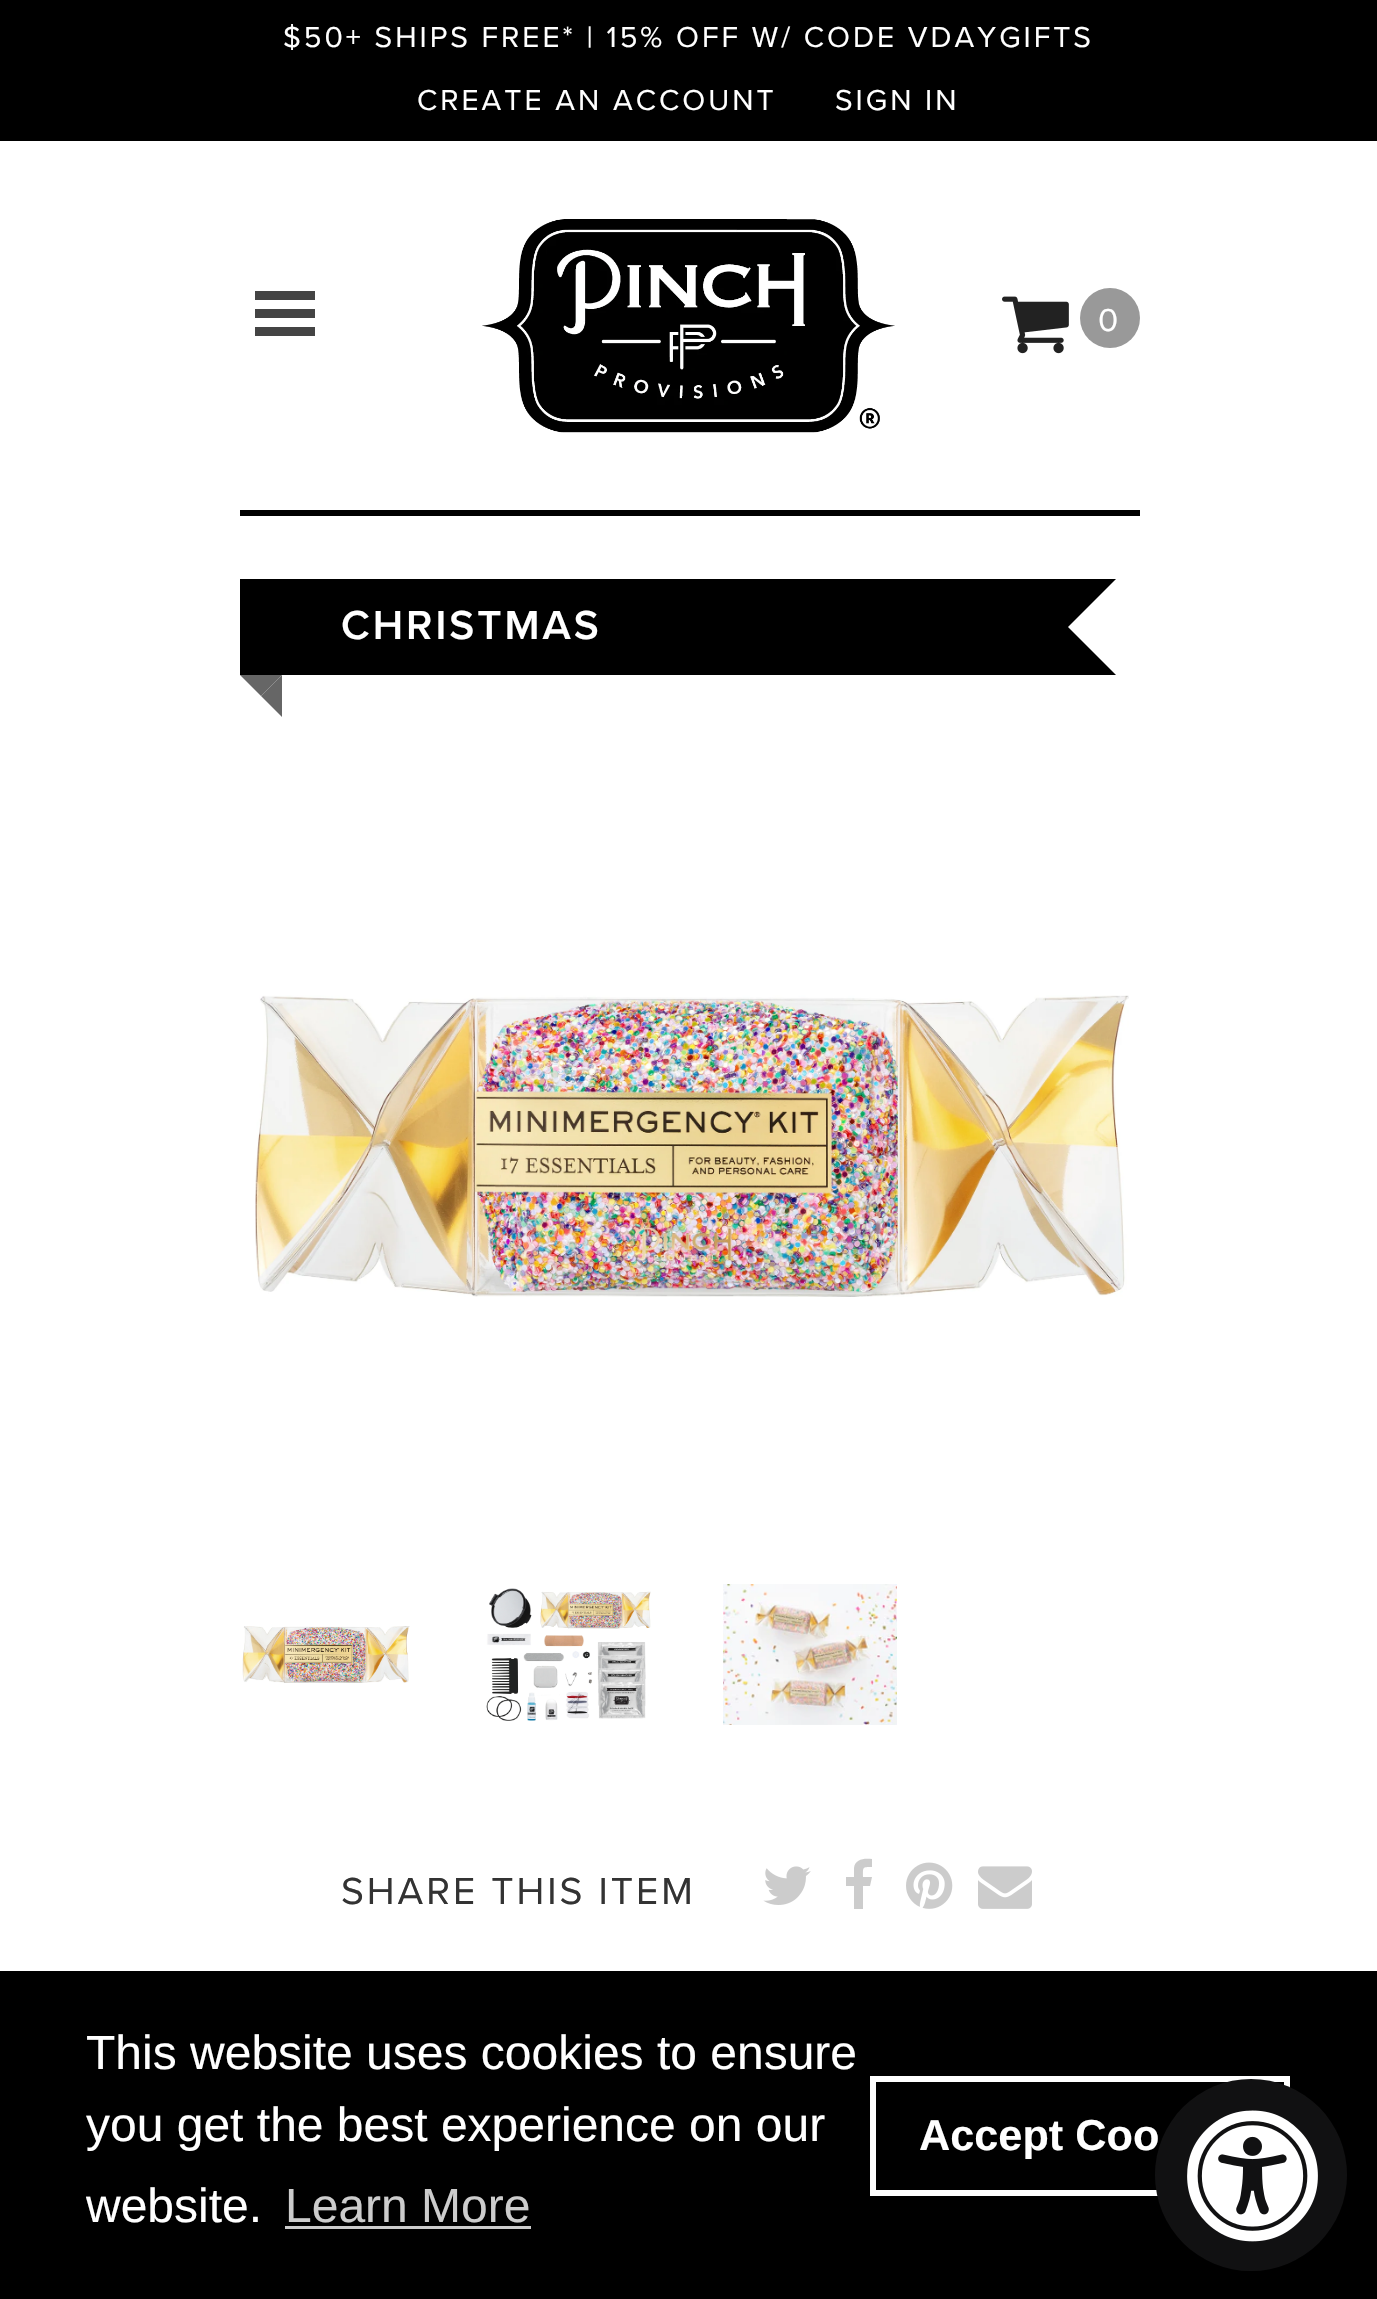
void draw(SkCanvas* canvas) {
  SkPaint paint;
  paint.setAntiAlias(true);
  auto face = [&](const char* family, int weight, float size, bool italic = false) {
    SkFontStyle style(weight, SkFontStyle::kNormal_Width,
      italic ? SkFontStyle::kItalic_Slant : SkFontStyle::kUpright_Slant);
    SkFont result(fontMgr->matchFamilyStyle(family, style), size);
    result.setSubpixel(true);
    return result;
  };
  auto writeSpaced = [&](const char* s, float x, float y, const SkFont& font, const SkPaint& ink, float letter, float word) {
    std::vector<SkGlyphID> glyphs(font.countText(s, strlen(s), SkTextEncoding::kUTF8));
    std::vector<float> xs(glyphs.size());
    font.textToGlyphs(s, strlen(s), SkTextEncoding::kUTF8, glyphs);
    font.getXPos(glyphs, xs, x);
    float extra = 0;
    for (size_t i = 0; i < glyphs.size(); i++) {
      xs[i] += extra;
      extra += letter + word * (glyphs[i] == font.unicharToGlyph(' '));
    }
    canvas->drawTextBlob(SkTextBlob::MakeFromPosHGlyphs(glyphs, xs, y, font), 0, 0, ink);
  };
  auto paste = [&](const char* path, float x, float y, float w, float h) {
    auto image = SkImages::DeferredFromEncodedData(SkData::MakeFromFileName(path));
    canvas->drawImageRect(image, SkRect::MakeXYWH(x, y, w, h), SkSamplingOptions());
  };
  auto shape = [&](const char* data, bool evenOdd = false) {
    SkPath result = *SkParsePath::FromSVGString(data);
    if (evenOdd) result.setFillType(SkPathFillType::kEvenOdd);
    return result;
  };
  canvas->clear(0xffffffff);
  {
    const struct { float x, y, w, h; SkColor color; } items[] = {
      {0, 0, 1377, 141, 0xff000000},
      {240, 510, 900, 6, 0xff000000},
      {255, 291, 60, 9, 0xff444444},
      {255, 309, 60, 9, 0xff444444},
      {255, 327, 60, 9, 0xff444444},
    };
    for (auto [x, y, w, h, color] : items) {
      paint.setColor(color);
      canvas->drawRect(SkRect::MakeXYWH(x, y, w, h), paint);
    }
  }
  paste("img/1.png", 482, 219, 413, 214);
  paste("img/2.png", 1002, 296, 67, 58);
  paint.setColor(0xff999999);
  canvas->drawCircle(1110, 318, 30, paint);
  paint.setColor(0xff000000);
  canvas->drawRect(SkRect::MakeXYWH(240, 579, 828, 96), paint);
  canvas->drawPath(shape("M1020 579H1116L1068 627Z"), paint);
  canvas->drawPath(shape("M1116 675H1020L1068 627Z"), paint);
  paint.setColor(0xff666666);
  canvas->drawPath(shape("M240 675H282L261 696Z"), paint);
  canvas->drawPath(shape("M282 675V717L261 696Z"), paint);
  paste("img/3.png", 255, 995, 874, 302);
  paste("img/4.png", 242, 1626, 168, 57);
  paste("img/5.png", 486, 1588, 165, 133);
  paste("img/6.png", 723, 1584, 174, 141);
  paste("img/7.png", 763, 1866, 48, 39);
  paint.setColor(0xffcccccc);
  canvas->drawPath(shape("M846 1886V1877H854V1868C855 1859 864 1858 872 1859V1867C862 1867 863 1867 863 1877H872L870 1886H863V1909H854V1886Z"), paint);
  paste("img/8.png", 906, 1862, 47, 47);
  paste("img/9.png", 978, 1866, 54, 43);
  paint.setColor(0xff000000);
  canvas->drawRect(SkRect::MakeXYWH(0, 1971, 1377, 328), paint);
  paint.setColor(0xffcccccc);
  canvas->drawRect(SkRect::MakeXYWH(285, 2226, 246, 3), paint);
  paint.setStroke(true);
  paint.setStrokeWidth(6);
  paint.setColor(0xffffffff);
  canvas->drawRect(SkRect::MakeXYWH(873, 2079, 414, 114), paint);
  auto f0 = face("Proxima Nova", 400, 30);
  paint.setStroke(false);
  {
    const struct { const char* s; float x, y; } items[] = {
      {"$50+ SHIPS FREE* | 15% OFF W/ CODE VDAYGIFTS", 283, 47},
      {"CREATE AN ACCOUNT", 417, 110},
      {"SIGN IN", 835, 110},
    };
    for (auto [s, x, y] : items) {
      writeSpaced(s, x, y, f0, paint, 3, 0);
    }
  }
  auto f1 = face("Proxima Nova", 400, 33);
  canvas->drawString("0", 1098, 331, f1, paint);
  auto f2 = face("Proxima Nova", 600, 42);
  writeSpaced("CHRISTMAS", 341, 639, f2, paint, 3, 0);
  auto f3 = face("Proxima Nova", 400, 39);
  paint.setColor(0xff333333);
  writeSpaced("SHARE THIS ITEM", 341, 1904, f3, paint, 3, 0);
  auto f4 = face("Liberation Sans", 400, 48);
  paint.setColor(0xffffffff);
  {
    const struct { const char* s; float x, y; } items[] = {
      {"This website uses cookies to ensure", 86, 2069},
      {"you get the best experience on our", 86, 2141},
      {"website.", 86, 2222},
    };
    for (auto [s, x, y] : items) {
      canvas->drawString(s, x, y, f4, paint);
    }
  }
  paint.setColor(0xffcccccc);
  canvas->drawString("Learn More", 285, 2222, f4, paint);
  auto f5 = face("Liberation Sans", 700, 43.25f);
  paint.setColor(0xffffffff);
  canvas->drawString("Accept Coo", 919, 2150, f5, paint);
  paint.setColor(0xff111112);
  canvas->drawCircle(1251, 2175, 96, paint);
  paste("img/10.png", 1187, 2110, 131, 132);
}
